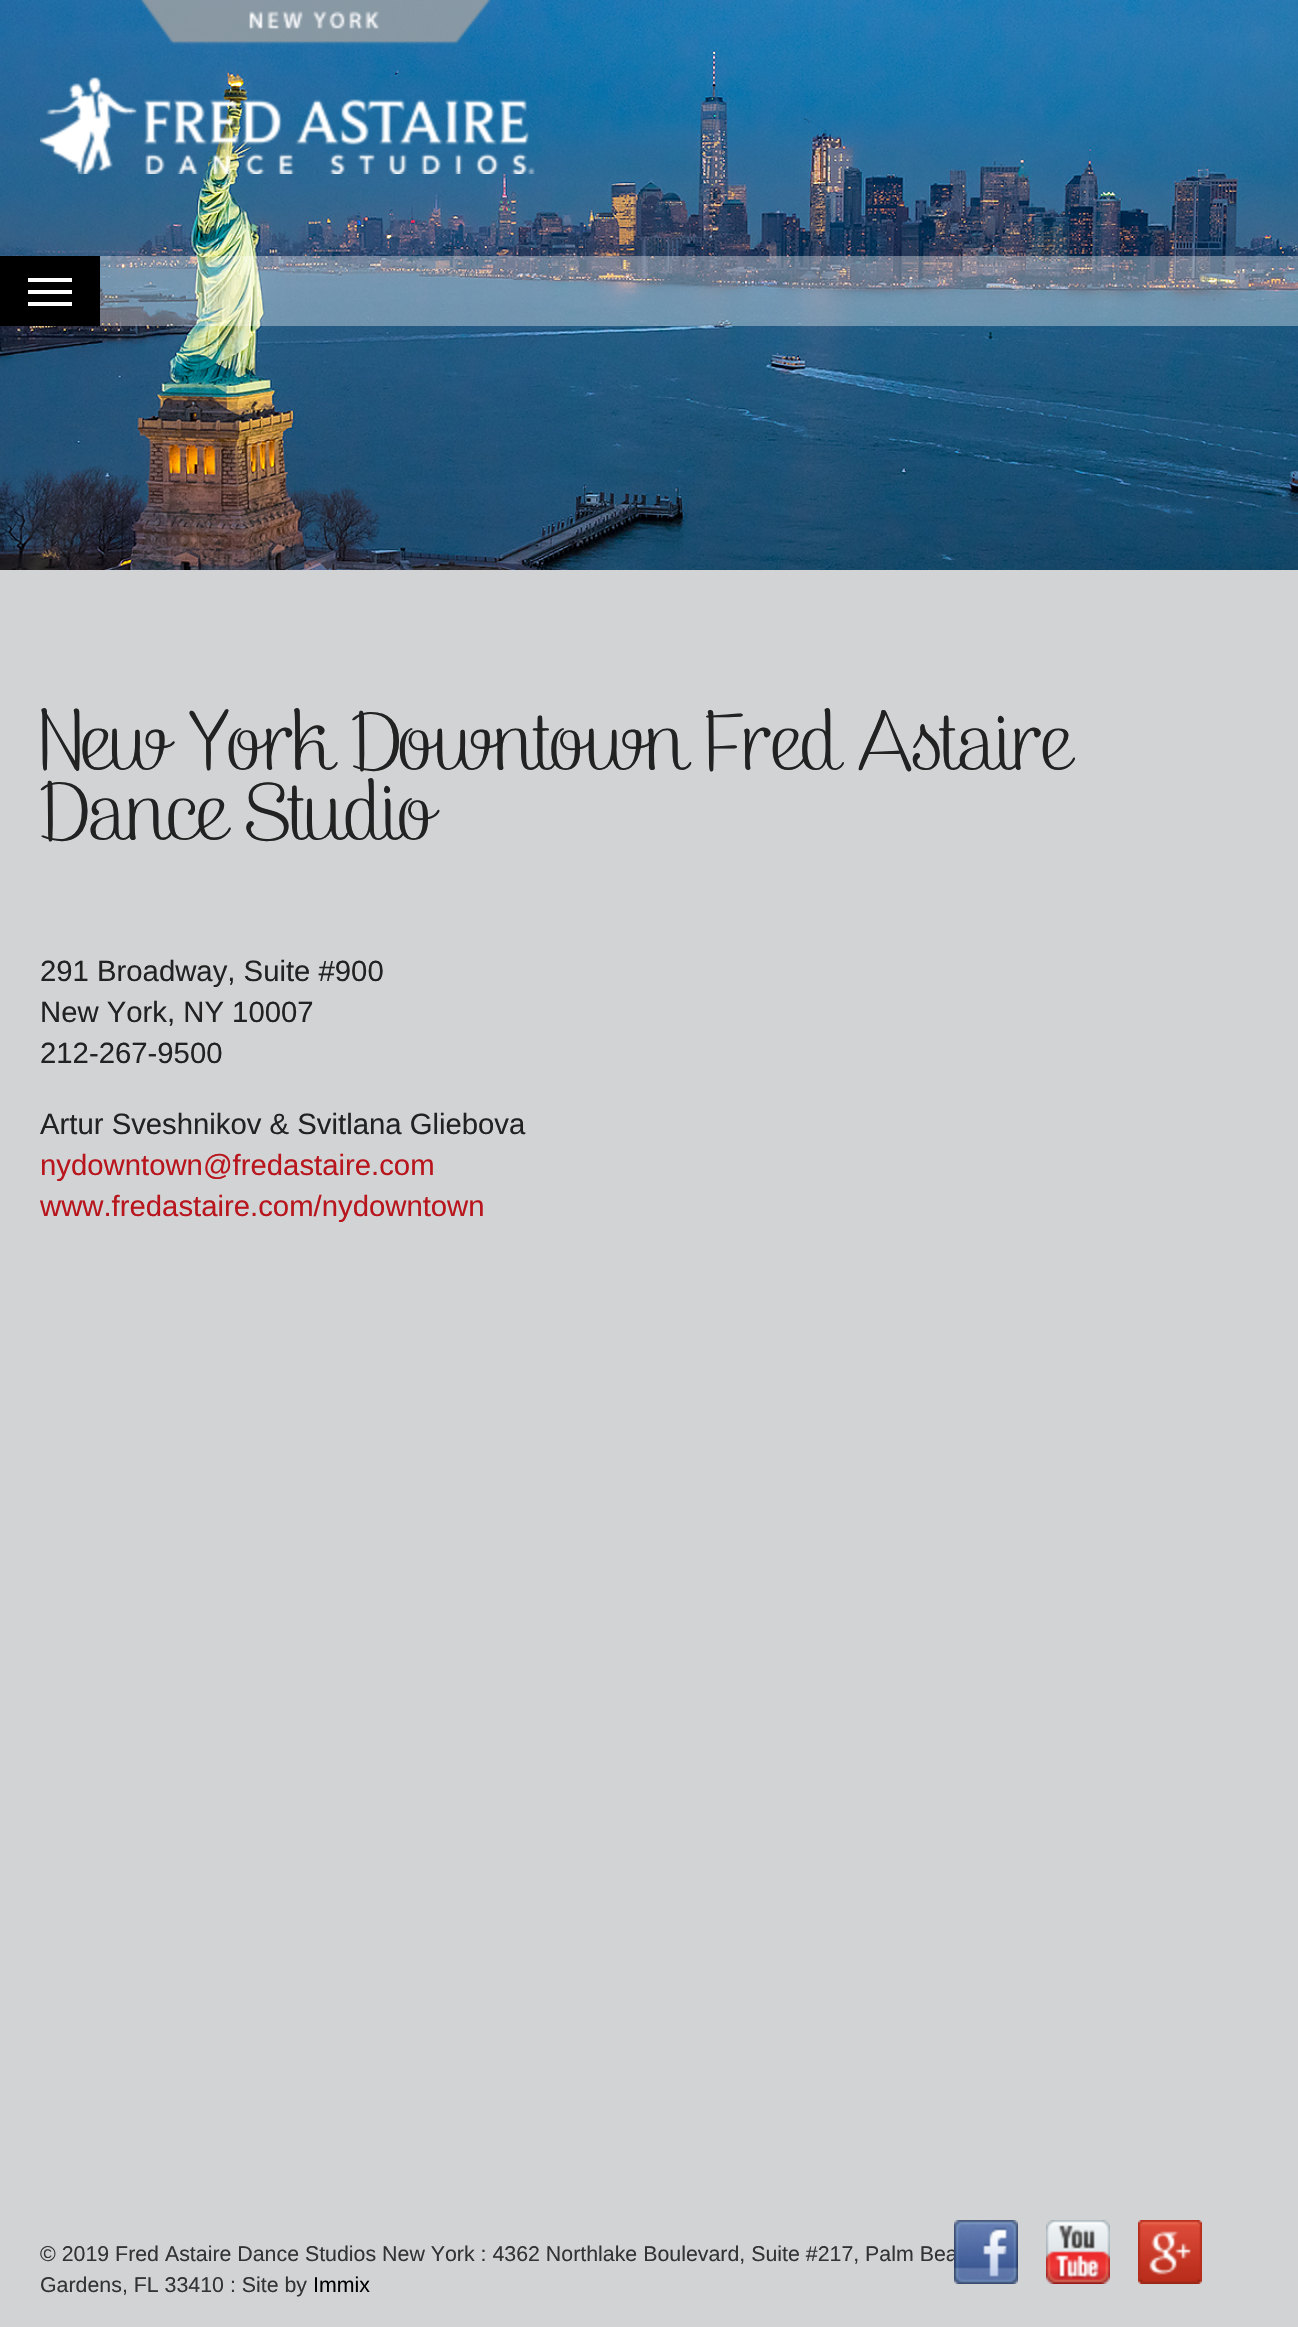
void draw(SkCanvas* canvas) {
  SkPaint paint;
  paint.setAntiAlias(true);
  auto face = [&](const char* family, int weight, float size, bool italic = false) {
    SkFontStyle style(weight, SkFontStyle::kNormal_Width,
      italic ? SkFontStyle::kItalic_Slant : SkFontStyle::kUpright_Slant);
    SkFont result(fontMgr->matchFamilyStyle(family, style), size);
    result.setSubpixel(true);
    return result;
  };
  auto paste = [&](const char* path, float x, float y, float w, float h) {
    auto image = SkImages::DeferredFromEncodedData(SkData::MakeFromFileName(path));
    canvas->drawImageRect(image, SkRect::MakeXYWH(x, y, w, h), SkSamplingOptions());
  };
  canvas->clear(0xffd1d3d4);
  paste("img/3.png", 0, 0, 1298, 570);
  paste("img/1.png", 141, 0, 350, 45);
  paste("img/2.png", 40, 77, 495, 97);
  {
    const struct { float x, y, w, h; SkColor color; } items[] = {
      {100, 256, 1198, 70, 0x59ffffff},
      {0, 256, 100, 70, 0xff000000},
      {28, 278, 44, 4, 0xffffffff},
      {28, 290, 44, 4, 0xffffffff},
      {28, 302, 44, 4, 0xffffffff},
    };
    for (auto [x, y, w, h, color] : items) {
      paint.setColor(color);
      canvas->drawRect(SkRect::MakeXYWH(x, y, w, h), paint);
    }
  }
  paste("img/5.png", 1046, 2220, 64, 64);
  paste("img/6.png", 1138, 2220, 64, 64);
  auto f0 = face("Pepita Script", 400, 70);
  paint.setColor(0xff222222);
  canvas->drawString("New York Downtown Fred Astaire", 40, 770, f0, paint);
  canvas->drawString("Dance Studio", 40, 840, f0, paint);
  auto f1 = face("Liberation Sans", 400, 29.3f);
  {
    const struct { const char* s; float x, y; } items[] = {
      {"291 Broadway, Suite #900", 40, 981},
      {"New York, NY 10007", 40, 1022},
      {"212-267-9500", 40, 1063},
      {"Artur Sveshnikov & Svitlana Gliebova", 40, 1134},
    };
    for (auto [s, x, y] : items) {
      canvas->drawString(s, x, y, f1, paint);
    }
  }
  paint.setColor(0xffb8151d);
  canvas->drawString("nydowntown@fredastaire.com", 40, 1175, f1, paint);
  canvas->drawString("www.fredastaire.com/nydowntown", 40, 1216, f1, paint);
  auto f2 = face("Liberation Sans", 400, 21.35f);
  paint.setColor(0xff333333);
  canvas->drawString("© 2019 Fred Astaire Dance Studios New York : 4362 Northlake Boulevard, Suite #217, Palm Bea", 40, 2261, f2, paint);
  canvas->drawString("Gardens, FL 33410 : Site by", 40, 2292, f2, paint);
  paint.setColor(0xff000000);
  canvas->drawString("Immix", 313, 2292, f2, paint);
  paste("img/4.png", 954, 2220, 64, 64);
}
